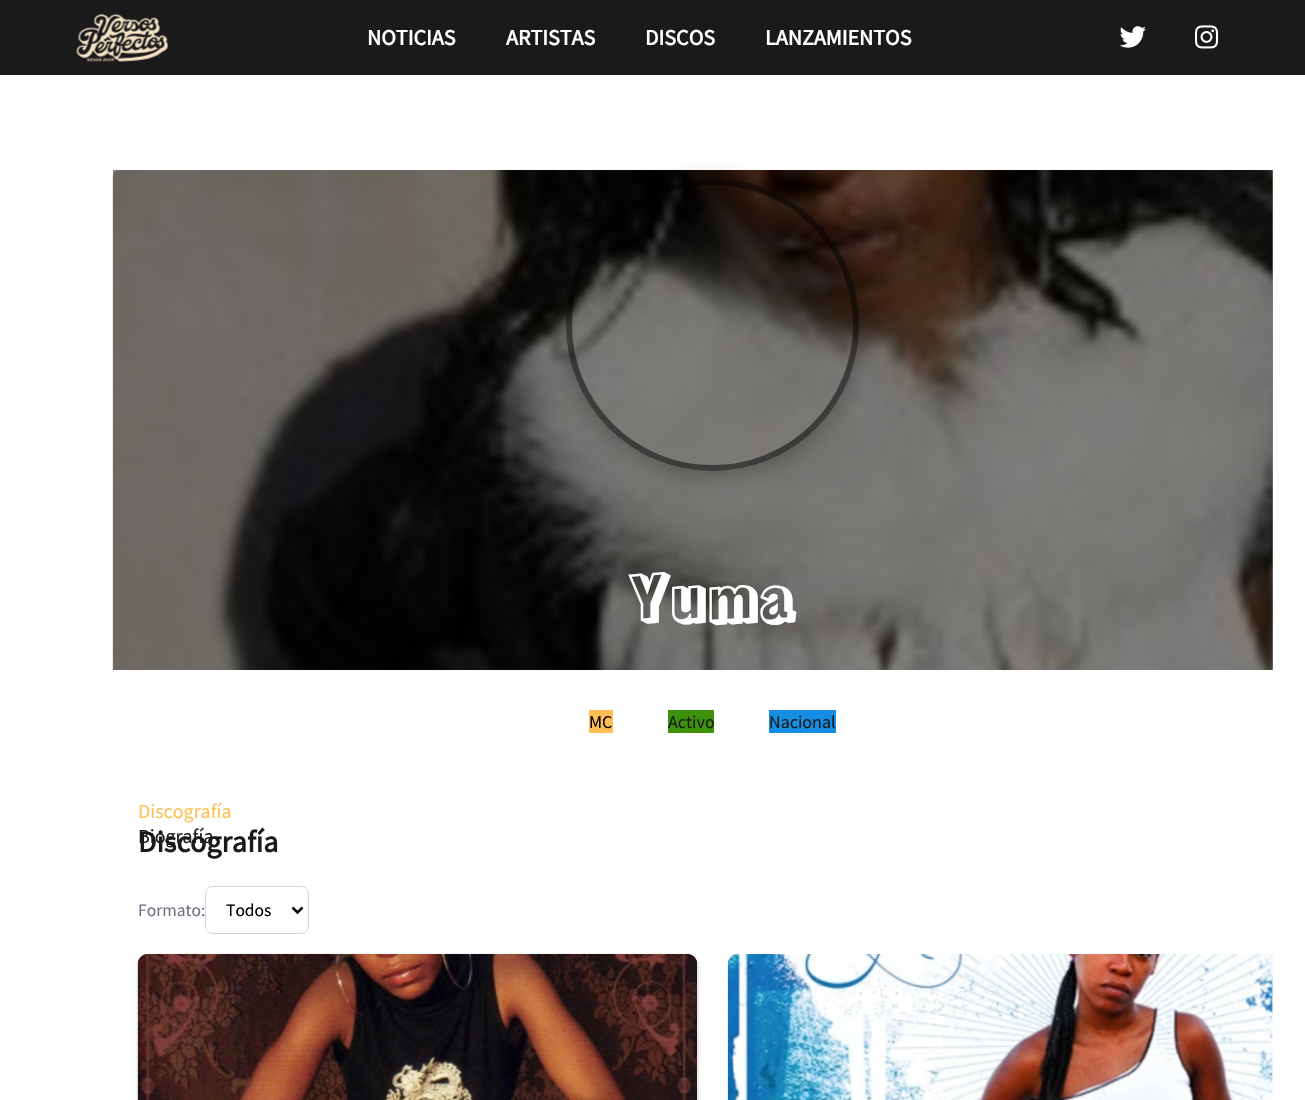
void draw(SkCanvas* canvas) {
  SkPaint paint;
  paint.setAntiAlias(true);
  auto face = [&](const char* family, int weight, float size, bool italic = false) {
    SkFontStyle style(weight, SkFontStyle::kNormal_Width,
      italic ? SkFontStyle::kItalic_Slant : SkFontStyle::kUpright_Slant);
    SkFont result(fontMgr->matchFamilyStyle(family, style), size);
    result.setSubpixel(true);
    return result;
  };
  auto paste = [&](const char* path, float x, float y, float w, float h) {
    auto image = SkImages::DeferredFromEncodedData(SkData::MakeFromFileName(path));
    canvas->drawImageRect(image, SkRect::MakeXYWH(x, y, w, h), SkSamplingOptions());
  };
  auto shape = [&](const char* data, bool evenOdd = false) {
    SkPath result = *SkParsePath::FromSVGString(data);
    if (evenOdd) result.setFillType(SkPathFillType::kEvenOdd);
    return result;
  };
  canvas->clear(0xffffffff);
  paint.setColor(0xff1a1a1a);
  canvas->drawRect(SkRect::MakeXYWH(0, 0, 1305, 75), paint);
  paste("img/1.png", 76, 13, 93, 49);
  paste("img/2.png", 1119, 26, 27, 22);
  paste("img/3.png", 1194, 25, 25, 24);
  paste("img/4.png", 112, 170, 1161, 500);
  paint.setColor(0x80000000);
  canvas->drawRect(SkRect::MakeXYWH(113, 170, 1160, 500), paint);
  canvas->save();
  canvas->clipPath(shape("M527 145H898V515H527ZM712 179H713C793.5 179 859 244.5 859 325C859 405.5 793.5 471 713 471H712C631.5 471 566 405.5 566 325C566 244.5 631.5 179 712 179Z", true), true);
  paint.setColor(0x4d000000);
  paint.setMaskFilter(SkMaskFilter::MakeBlur(kNormal_SkBlurStyle, 12.5f));
  canvas->drawRoundRect(SkRect::MakeXYWH(566, 184, 293, 292), 146, 146, paint);
  paint.setMaskFilter(nullptr);
  canvas->restore();
  paint.setStroke(true);
  paint.setStrokeWidth(6);
  paint.setColor(0x80000000);
  canvas->drawRoundRect(SkRect::MakeXYWH(569, 182, 287, 286), 143, 143, paint);
  paint.setStroke(false);
  {
    const struct { float x, y, w, h; SkColor color; } items[] = {
      {589, 710, 24, 23, 0xffffbe54},
      {668, 710, 46, 23, 0xff3d9209},
      {769, 710, 67, 23, 0xff158de3},
    };
    for (auto [x, y, w, h, color] : items) {
      paint.setColor(color);
      canvas->drawRect(SkRect::MakeXYWH(x, y, w, h), paint);
    }
  }
  paint.setStroke(true);
  paint.setStrokeWidth(1);
  paint.setColor(0xffd1d5db);
  canvas->drawRoundRect(SkRect::MakeXYWH(205.5f, 886.5f, 103, 47), 7.5f, 7.5f, paint);
  paint.setStrokeWidth(2.5f);
  paint.setColor(0xff000000);
  canvas->drawPath(shape("M292.5 907.5L297.5 912.5L302.5 907.5"), paint);
  paint.setStroke(false);
  paint.setColor(0x0f000000);
  paint.setMaskFilter(SkMaskFilter::MakeBlur(kNormal_SkBlurStyle, 1));
  canvas->drawRoundRect(SkRect::MakeXYWH(138, 955, 560, 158), 10, 10, paint);
  paint.setMaskFilter(nullptr);
  paint.setColor(0x1a000000);
  paint.setMaskFilter(SkMaskFilter::MakeBlur(kNormal_SkBlurStyle, 2));
  canvas->drawRoundRect(SkRect::MakeXYWH(138, 955, 560, 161), 10, 10, paint);
  paint.setMaskFilter(nullptr);
  paint.setColor(0xffffffff);
  canvas->drawRoundRect(SkRect::MakeXYWH(138, 954, 560, 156), 10, 10, paint);
  paste("img/5.png", 137, 954, 561, 146);
  paste("img/6.png", 727, 954, 546, 146);
  auto f0 = face("Source Sans Pro", 700, 22);
  {
    const struct { const char* s; float x, y; } items[] = {
      {"NOTICIAS", 367, 45},
      {"ARTISTAS", 506, 45},
      {"DISCOS", 645, 45},
      {"LANZAMIENTOS", 765, 45},
    };
    for (auto [s, x, y] : items) {
      canvas->drawString(s, x, y, f0, paint);
    }
  }
  auto f1 = face("Rampart One", 700, 60);
  canvas->drawString("Yuma", 630, 621, f1, paint);
  auto f2 = face("Source Sans Pro", 400, 18);
  paint.setColor(0xff000000);
  canvas->drawString("MC", 589, 728, f2, paint);
  paint.setColor(0xff1a1a1a);
  canvas->drawString("Activo", 668, 728, f2, paint);
  canvas->drawString("Nacional", 769, 728, f2, paint);
  auto f3 = face("Source Sans Pro", 400, 20);
  paint.setColor(0xffffbe54);
  canvas->drawString("Discografía", 138, 818, f3, paint);
  auto f4 = face("Source Sans Pro", 700, 30);
  paint.setColor(0xff1a1a1a);
  canvas->drawString("Discografía", 138, 852, f4, paint);
  canvas->drawString("Biografía", 138, 843, f3, paint);
  auto f5 = face("Source Sans Pro", 400, 17.5f);
  paint.setColor(0xff6b7280);
  canvas->drawString("Formato:", 138, 916, f5, paint);
  paint.setColor(0xff000000);
  canvas->drawString("Todos", 226, 916, f5, paint);
}
